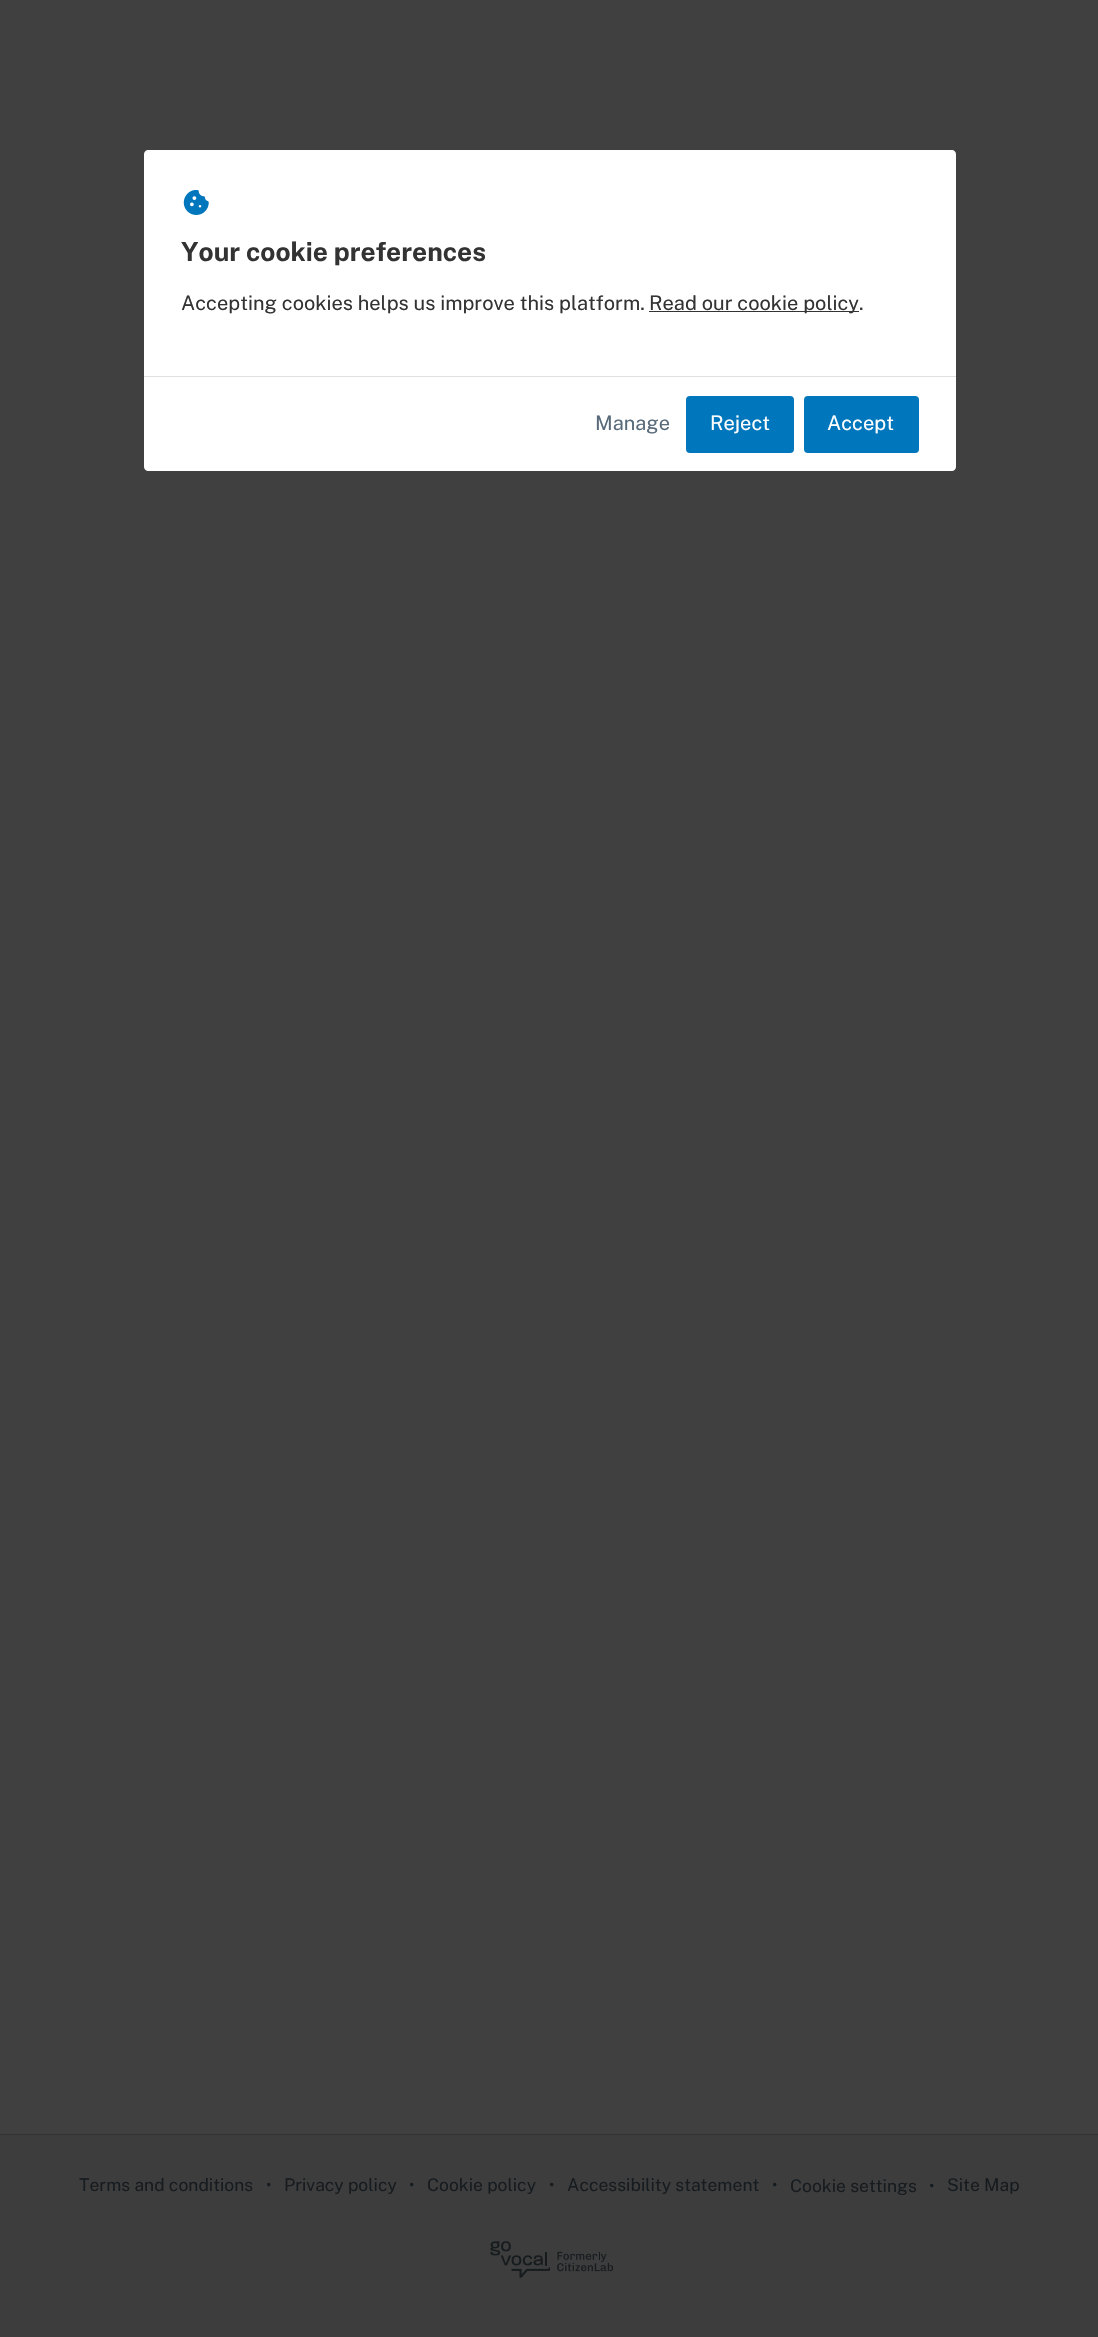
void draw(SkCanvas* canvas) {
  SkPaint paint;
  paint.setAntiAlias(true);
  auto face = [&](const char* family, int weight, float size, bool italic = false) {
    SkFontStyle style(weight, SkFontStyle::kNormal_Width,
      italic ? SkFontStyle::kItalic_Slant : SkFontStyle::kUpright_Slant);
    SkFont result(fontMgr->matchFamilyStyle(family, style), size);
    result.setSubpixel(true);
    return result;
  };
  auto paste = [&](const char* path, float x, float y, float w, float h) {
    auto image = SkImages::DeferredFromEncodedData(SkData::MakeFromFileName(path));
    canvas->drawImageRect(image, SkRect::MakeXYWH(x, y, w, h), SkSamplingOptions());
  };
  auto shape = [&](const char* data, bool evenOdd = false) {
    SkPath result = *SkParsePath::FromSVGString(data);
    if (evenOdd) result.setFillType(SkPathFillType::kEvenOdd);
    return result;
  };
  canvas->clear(0xff404040);
  paint.setColor(0xffffffff);
  canvas->drawPath(shape("M148 150H952C954 150 956 152 956 154V376H144V154C144 152 146 150 148 150Z"), paint);
  paste("img/1.png", 183, 189, 26, 26);
  paint.setColor(0xff333333);
  canvas->drawRect(SkRect::MakeXYWH(649, 311, 210, 1), paint);
  paint.setColor(0xffffffff);
  canvas->drawPath(shape("M144 376H956V467C956 469 954 471 952 471H148C146 471 144 469 144 467Z"), paint);
  paint.setColor(0xffe0e0e0);
  canvas->drawRect(SkRect::MakeXYWH(144, 376, 812, 1), paint);
  paint.setColor(0xff0076bc);
  canvas->drawRoundRect(SkRect::MakeXYWH(686, 396, 108, 57), 4, 4, paint);
  canvas->drawRoundRect(SkRect::MakeXYWH(804, 396, 115, 57), 4, 4, paint);
  paint.setColor(0xff3d3d3d);
  canvas->drawRect(SkRect::MakeXYWH(0, 2135, 1098, 202), paint);
  paint.setColor(0xff333333);
  canvas->drawRect(SkRect::MakeXYWH(0, 2134, 1098, 1), paint);
  paste("img/2.png", 490, 2241, 124, 37);
  auto f0 = face("Public Sans", 700, 26.25f);
  canvas->drawString("Your cookie preferences", 181, 261, f0, paint);
  auto f1 = face("Public Sans", 400, 20);
  canvas->drawString("Accepting cookies helps us improve this platform.", 181, 310, f1, paint);
  canvas->drawString("Read our cookie policy.", 649, 310, f1, paint);
  paint.setColor(0xff596b7a);
  canvas->drawString("Manage", 595, 430, f1, paint);
  paint.setColor(0xffffffff);
  canvas->drawString("Reject", 710, 430, f1, paint);
  canvas->drawString("Accept", 827, 430, f1, paint);
  auto f2 = face("Public Sans", 400, 17.5f);
  paint.setColor(0xff161b1f);
  {
    const struct { const char* s; float x, y; } items[] = {
      {"Terms and conditions", 79, 2191},
      {"•", 266, 2191},
      {"Privacy policy", 284, 2191},
      {"•", 409, 2191},
      {"Cookie policy", 427, 2191},
      {"•", 549, 2191},
      {"Accessibility statement", 567, 2191},
      {"•", 772, 2191},
      {"Cookie settings", 790, 2192},
      {"•", 929, 2192},
      {"Site Map", 947, 2191},
    };
    for (auto [s, x, y] : items) {
      canvas->drawString(s, x, y, f2, paint);
    }
  }
}
